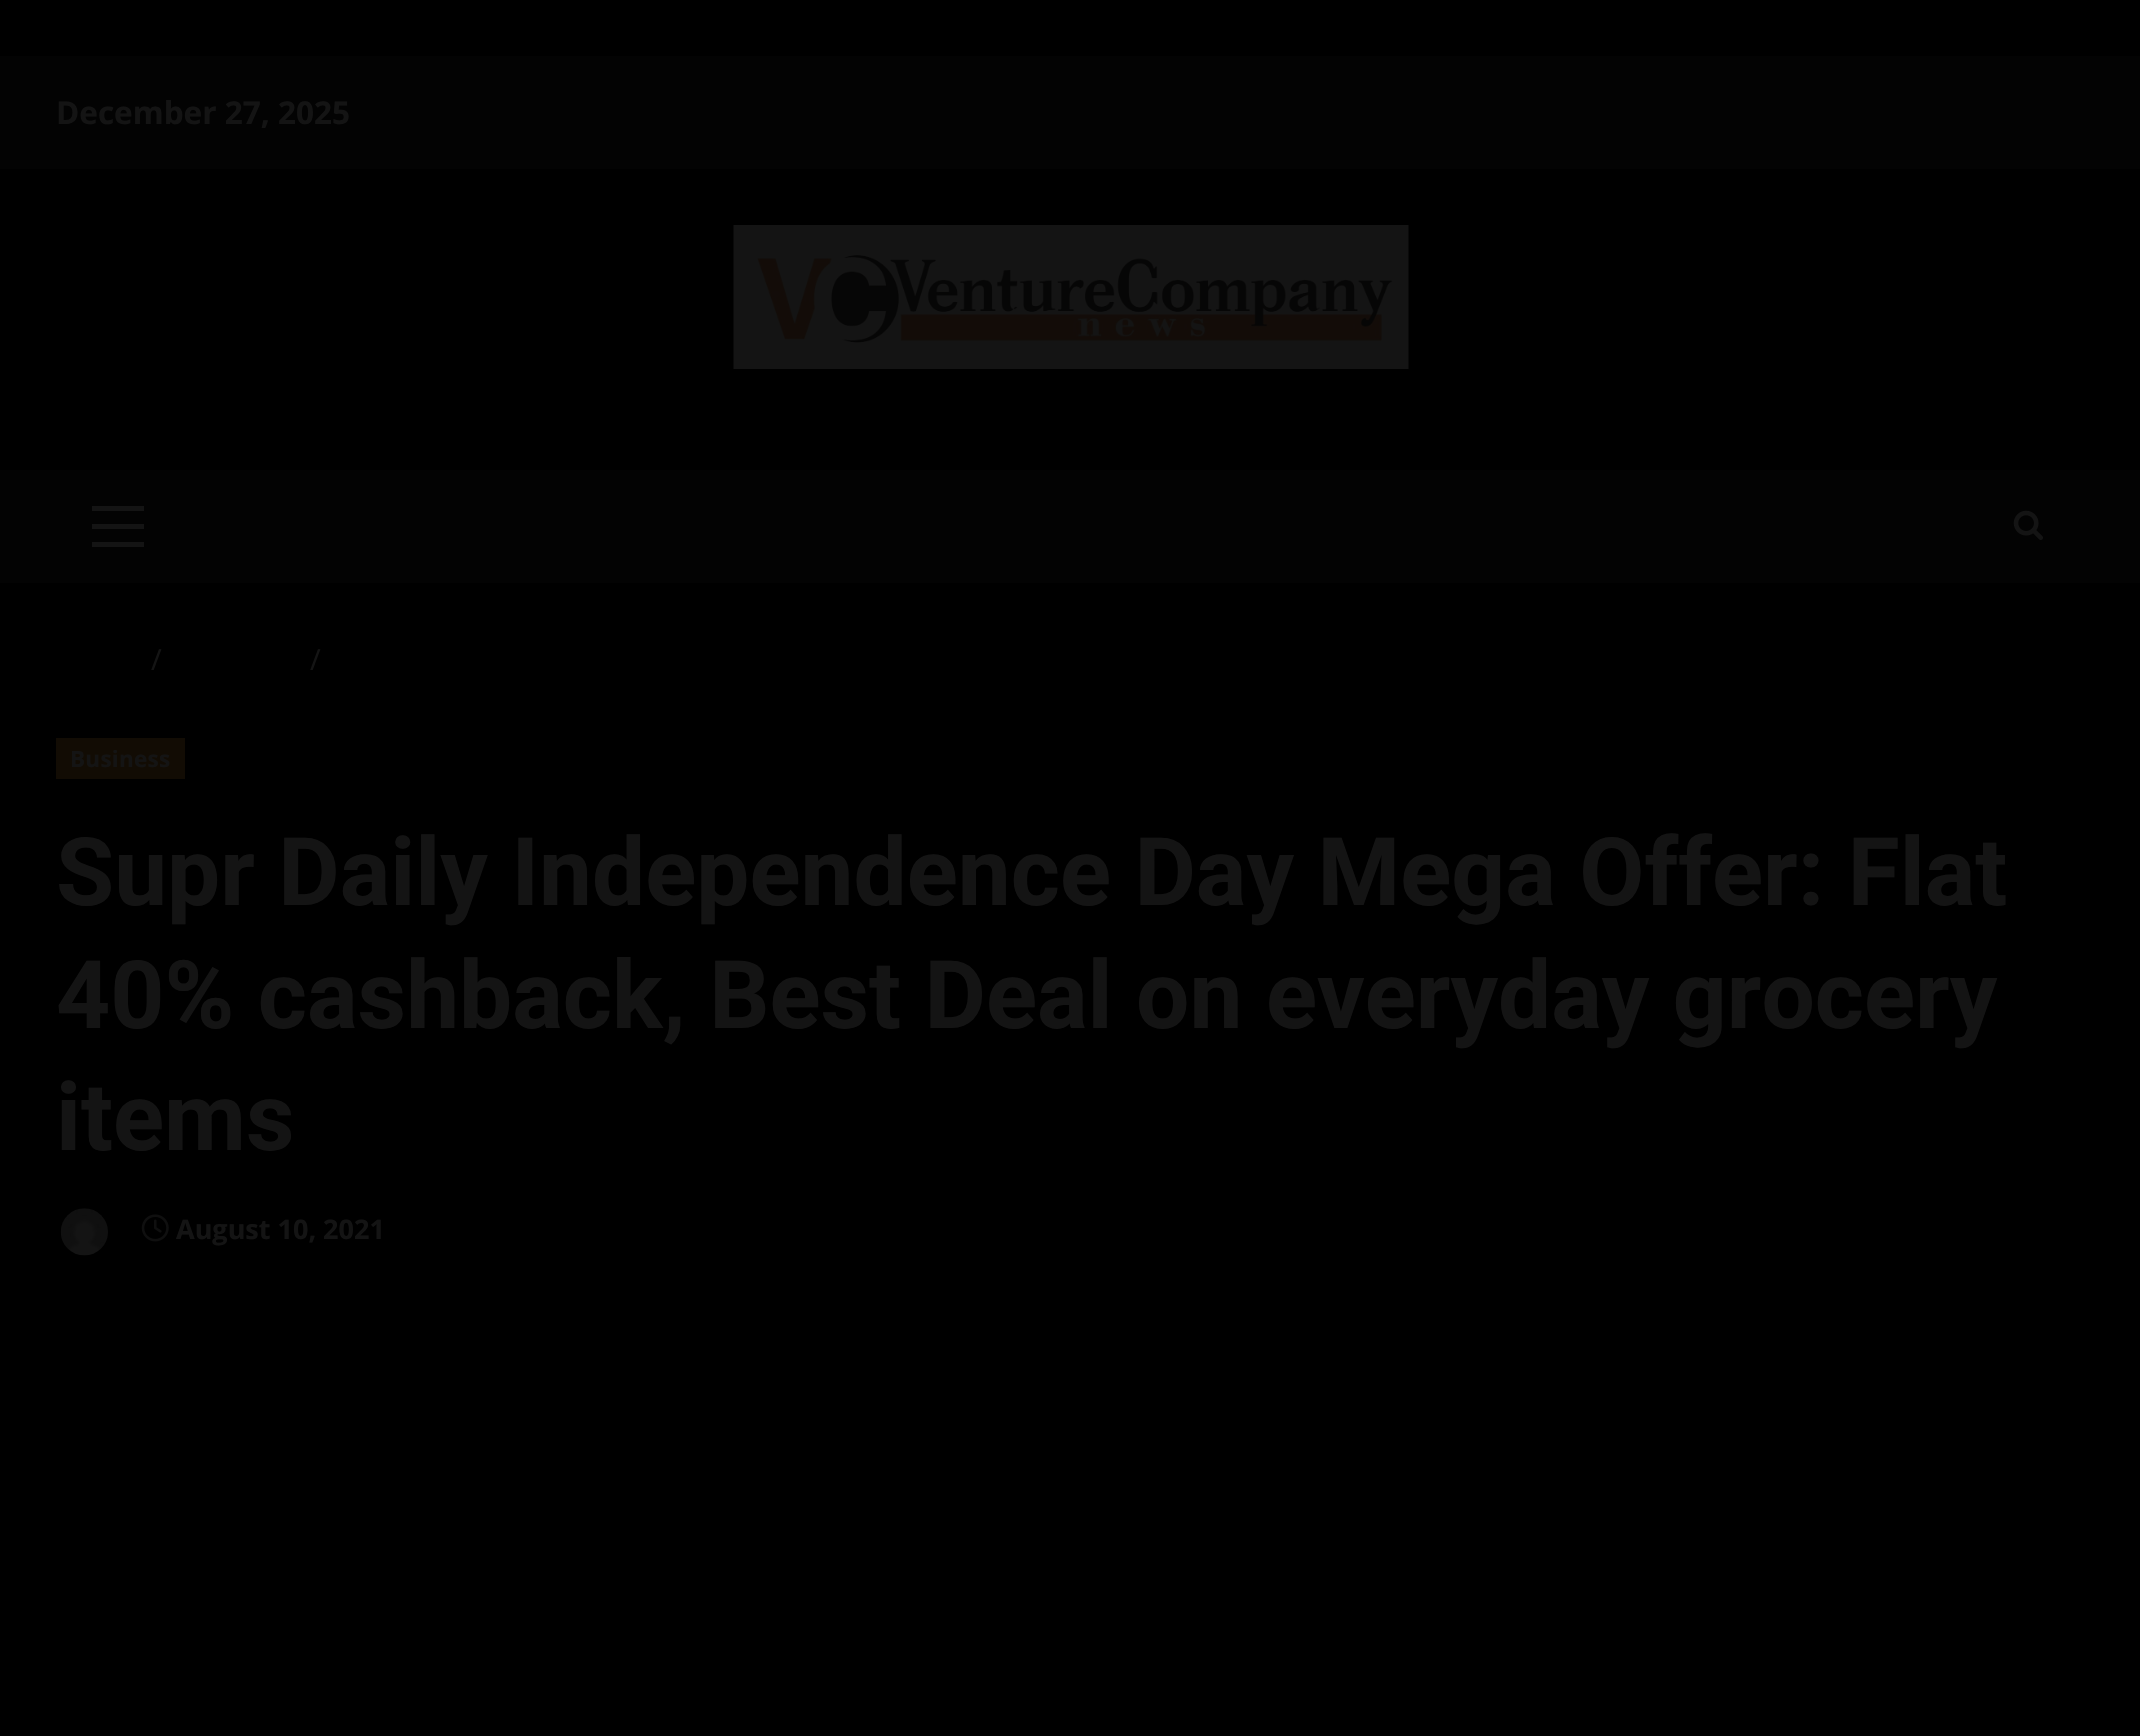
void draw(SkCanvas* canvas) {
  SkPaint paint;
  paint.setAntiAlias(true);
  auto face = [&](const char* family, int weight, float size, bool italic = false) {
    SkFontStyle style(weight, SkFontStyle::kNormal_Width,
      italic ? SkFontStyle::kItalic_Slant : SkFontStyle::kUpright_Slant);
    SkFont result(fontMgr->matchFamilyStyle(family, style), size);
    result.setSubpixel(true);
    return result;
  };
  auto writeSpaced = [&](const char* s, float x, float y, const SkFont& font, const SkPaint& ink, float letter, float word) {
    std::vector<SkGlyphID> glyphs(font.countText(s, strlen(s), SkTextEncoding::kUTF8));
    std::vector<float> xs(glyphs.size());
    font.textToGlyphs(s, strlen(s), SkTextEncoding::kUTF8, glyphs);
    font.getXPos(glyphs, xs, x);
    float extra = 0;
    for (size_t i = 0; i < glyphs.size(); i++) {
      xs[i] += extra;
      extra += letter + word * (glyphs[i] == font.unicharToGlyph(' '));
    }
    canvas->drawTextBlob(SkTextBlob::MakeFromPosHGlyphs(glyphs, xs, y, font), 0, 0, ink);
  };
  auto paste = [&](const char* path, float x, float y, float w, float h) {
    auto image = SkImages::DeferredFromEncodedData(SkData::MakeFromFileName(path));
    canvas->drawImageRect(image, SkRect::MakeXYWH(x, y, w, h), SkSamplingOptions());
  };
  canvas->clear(0xff000000);
  paint.setColor(0xff030303);
  canvas->drawRect(SkRect::MakeXYWH(0, 56, 2140, 113), paint);
  paste("img/1.png", 733, 225, 676, 144);
  {
    const struct { float x, y, w, h; SkColor color; } items[] = {
      {0, 470, 2140, 113, 0xff030303},
      {92, 524, 52, 5, 0xff141414},
      {92, 506, 52, 5, 0xff141414},
      {92, 542, 52, 5, 0xff141414},
    };
    for (auto [x, y, w, h, color] : items) {
      paint.setColor(color);
      canvas->drawRect(SkRect::MakeXYWH(x, y, w, h), paint);
    }
  }
  paste("img/2.png", 2013, 510, 30, 30);
  paint.setColor(0xff120c04);
  canvas->drawRect(SkRect::MakeXYWH(56, 738, 129, 41), paint);
  paste("img/3.png", 60, 1208, 48, 48);
  paste("img/4.png", 141, 1214, 28, 28);
  auto f0 = face("Open Sans", 700, 31.5f);
  paint.setColor(0xff141414);
  canvas->drawString("December 27, 2025", 56, 124, f0, paint);
  auto f1 = face("Open Sans", 400, 29);
  canvas->drawString("/", 151, 670, f1, paint);
  canvas->drawString("/", 310, 670, f1, paint);
  auto f2 = face("Open Sans", 700, 22.5f);
  writeSpaced("Business", 70, 767, f2, paint, 0.25f, 0);
  auto f3 = face("Roboto", 700, 94.5f);
  {
    const struct { const char* s; float x, y; } items[] = {
      {"Supr Daily Independence Day Mega Offer: Flat", 56, 905},
      {"40% cashback, Best Deal on everyday grocery", 56, 1028},
      {"items", 56, 1150},
    };
    for (auto [s, x, y] : items) {
      canvas->drawString(s, x, y, f3, paint);
    }
  }
  auto f4 = face("Open Sans", 700, 27);
  canvas->drawString("August 10, 2021", 176, 1239, f4, paint);
}
